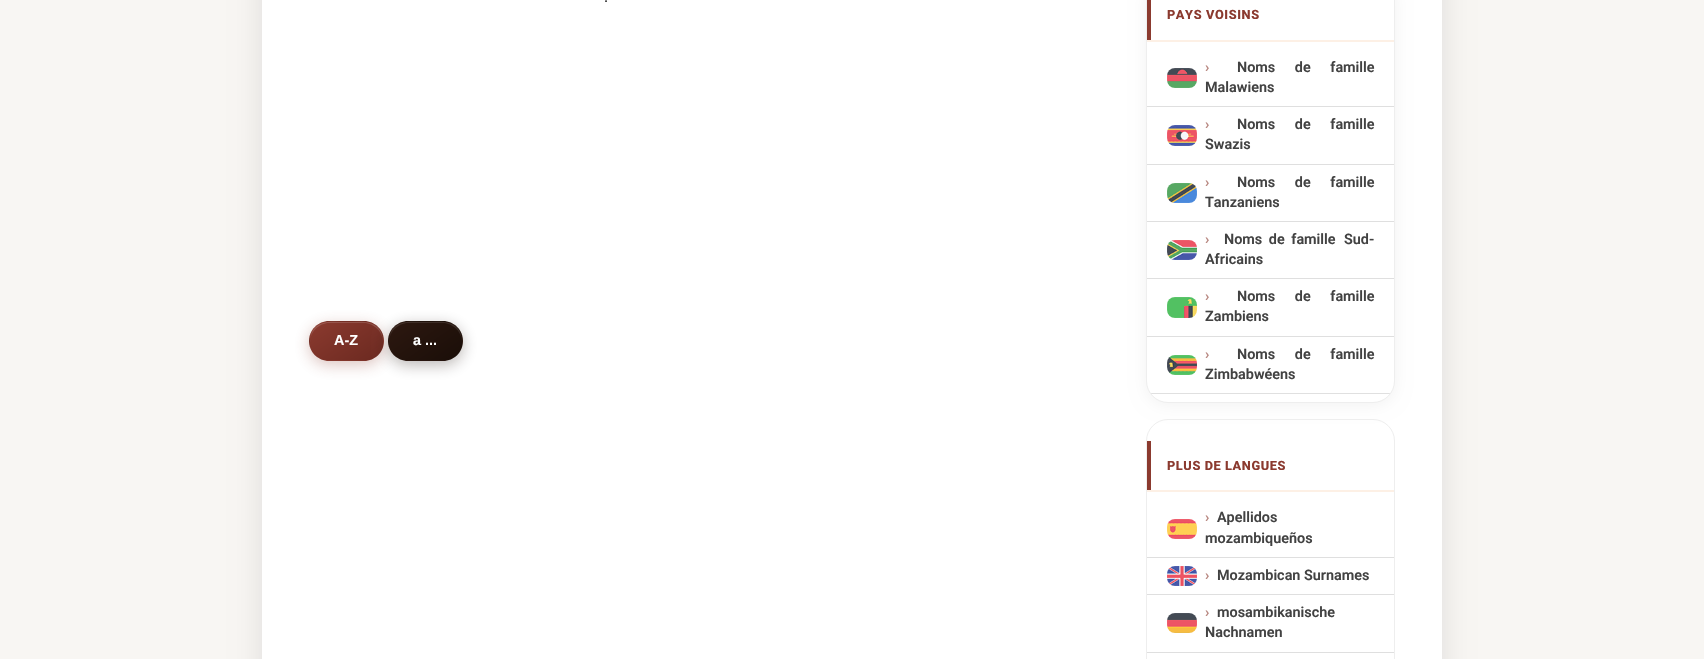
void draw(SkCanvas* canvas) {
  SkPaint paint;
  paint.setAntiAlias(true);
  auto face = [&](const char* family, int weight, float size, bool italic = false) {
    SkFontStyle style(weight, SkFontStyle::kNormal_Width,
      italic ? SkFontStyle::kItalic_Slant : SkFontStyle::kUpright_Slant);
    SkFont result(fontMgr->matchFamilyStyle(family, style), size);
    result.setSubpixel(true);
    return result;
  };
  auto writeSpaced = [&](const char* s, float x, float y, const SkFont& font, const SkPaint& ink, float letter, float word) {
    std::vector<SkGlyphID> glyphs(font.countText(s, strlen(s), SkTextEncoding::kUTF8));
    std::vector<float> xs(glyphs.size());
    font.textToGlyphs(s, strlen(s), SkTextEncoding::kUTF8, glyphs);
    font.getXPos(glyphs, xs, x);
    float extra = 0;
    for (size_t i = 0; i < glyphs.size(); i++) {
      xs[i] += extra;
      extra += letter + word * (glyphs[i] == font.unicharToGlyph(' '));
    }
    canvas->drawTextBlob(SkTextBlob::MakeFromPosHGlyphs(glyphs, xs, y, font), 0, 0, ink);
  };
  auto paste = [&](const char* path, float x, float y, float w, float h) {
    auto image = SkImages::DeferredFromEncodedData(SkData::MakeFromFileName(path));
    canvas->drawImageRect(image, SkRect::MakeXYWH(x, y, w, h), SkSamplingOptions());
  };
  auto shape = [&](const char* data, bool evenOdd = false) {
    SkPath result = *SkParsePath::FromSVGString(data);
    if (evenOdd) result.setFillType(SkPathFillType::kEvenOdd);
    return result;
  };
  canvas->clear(0xfff8f6f3);
  paint.setColor(0x1a000000);
  paint.setMaskFilter(SkMaskFilter::MakeBlur(kNormal_SkBlurStyle, 15));
  canvas->drawRoundRect(SkRect::MakeXYWH(262, -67, 1180, 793), 22, 22, paint);
  paint.setMaskFilter(nullptr);
  paint.setColor(0xffffffff);
  canvas->drawRect(SkRect::MakeXYWH(262, 0, 1180, 659), paint);
  paint.setColor(0x4d8b3a2f);
  paint.setMaskFilter(SkMaskFilter::MakeBlur(kNormal_SkBlurStyle, 7.5f));
  canvas->drawRoundRect(SkRect::MakeXYWH(309, 325, 75, 40), 20, 20, paint);
  paint.setMaskFilter(nullptr);
  canvas->save();
  canvas->clipPath(shape("M329 321H364C375 321 384 330 384 341C384 352 375 361 364 361H329C318 361 309 352 309 341C309 330 318 321 329 321Z"), true);
  {
    const SkColor colors[] = {0xff8b3a2f, 0xff6b2920};
    const float stops[] = {0, 1};
    const SkPoint ends[] = {{326, 273}, {367, 333}};
    paint.setShader(SkGradientShader::MakeLinear(ends, colors, stops, 2, SkTileMode::kClamp));
    paint.setAlpha(255);
  }
  canvas->drawRect(SkRect::MakeXYWH(323, 321, 47, 1), paint);
  {
    const SkColor colors[] = {0xff8b3a2f, 0xff6b2920};
    const float stops[] = {0, 1};
    const SkPoint ends[] = {{253, 311}, {294, 371}};
    paint.setShader(SkGradientShader::MakeLinear(ends, colors, stops, 2, SkTileMode::kClamp));
    paint.setAlpha(255);
  }
  canvas->drawRect(SkRect::MakeXYWH(309, 335, 1, 12), paint);
  {
    const SkColor colors[] = {0xff8b3a2f, 0xff6b2920};
    const float stops[] = {0, 1};
    const SkPoint ends[] = {{326, 311}, {367, 371}};
    paint.setShader(SkGradientShader::MakeLinear(ends, colors, stops, 2, SkTileMode::kClamp));
    paint.setAlpha(255);
  }
  canvas->drawRect(SkRect::MakeXYWH(310, 322, 73, 38), paint);
  {
    const SkColor colors[] = {0xff8b3a2f, 0xff6b2920};
    const float stops[] = {0, 1};
    const SkPoint ends[] = {{399, 311}, {440, 371}};
    paint.setShader(SkGradientShader::MakeLinear(ends, colors, stops, 2, SkTileMode::kClamp));
    paint.setAlpha(255);
  }
  canvas->drawRect(SkRect::MakeXYWH(383, 335, 1, 12), paint);
  {
    const SkColor colors[] = {0xff8b3a2f, 0xff6b2920};
    const float stops[] = {0, 1};
    const SkPoint ends[] = {{326, 349}, {367, 409}};
    paint.setShader(SkGradientShader::MakeLinear(ends, colors, stops, 2, SkTileMode::kClamp));
    paint.setAlpha(255);
  }
  canvas->drawRect(SkRect::MakeXYWH(323, 360, 47, 1), paint);
  canvas->restore();
  paint.setShader(nullptr);
  paint.setColor(0x26ffffff);
  canvas->drawPath(shape("M329 323H364C374 323 383 332 383 342C383 338 382 334 380 330C372 319 358 322 346 322C335 322 321 319 313 330C311 334 310 338 310 342C310 332 319 323 329 323Z"), paint);
  paint.setColor(0x4d1a0e08);
  paint.setMaskFilter(SkMaskFilter::MakeBlur(kNormal_SkBlurStyle, 7.5f));
  canvas->drawRoundRect(SkRect::MakeXYWH(388, 325, 75, 40), 20, 20, paint);
  paint.setMaskFilter(nullptr);
  canvas->save();
  canvas->clipPath(shape("M408 321H443C454 321 463 330 463 341C463 352 454 361 443 361H408C397 361 388 352 388 341C388 330 397 321 408 321Z"), true);
  {
    const SkColor colors[] = {0xff2d1810, 0xff1a0e08};
    const float stops[] = {0, 1};
    const SkPoint ends[] = {{405, 273}, {446, 333}};
    paint.setShader(SkGradientShader::MakeLinear(ends, colors, stops, 2, SkTileMode::kClamp));
    paint.setAlpha(255);
  }
  canvas->drawRect(SkRect::MakeXYWH(402, 321, 47, 1), paint);
  {
    const SkColor colors[] = {0xff2d1810, 0xff1a0e08};
    const float stops[] = {0, 1};
    const SkPoint ends[] = {{332, 311}, {373, 371}};
    paint.setShader(SkGradientShader::MakeLinear(ends, colors, stops, 2, SkTileMode::kClamp));
    paint.setAlpha(255);
  }
  canvas->drawRect(SkRect::MakeXYWH(388, 335, 1, 12), paint);
  {
    const SkColor colors[] = {0xff2d1810, 0xff1a0e08};
    const float stops[] = {0, 1};
    const SkPoint ends[] = {{405, 311}, {446, 371}};
    paint.setShader(SkGradientShader::MakeLinear(ends, colors, stops, 2, SkTileMode::kClamp));
    paint.setAlpha(255);
  }
  canvas->drawRect(SkRect::MakeXYWH(389, 322, 73, 38), paint);
  {
    const SkColor colors[] = {0xff2d1810, 0xff1a0e08};
    const float stops[] = {0, 1};
    const SkPoint ends[] = {{478, 311}, {519, 371}};
    paint.setShader(SkGradientShader::MakeLinear(ends, colors, stops, 2, SkTileMode::kClamp));
    paint.setAlpha(255);
  }
  canvas->drawRect(SkRect::MakeXYWH(462, 335, 1, 12), paint);
  {
    const SkColor colors[] = {0xff2d1810, 0xff1a0e08};
    const float stops[] = {0, 1};
    const SkPoint ends[] = {{405, 349}, {446, 409}};
    paint.setShader(SkGradientShader::MakeLinear(ends, colors, stops, 2, SkTileMode::kClamp));
    paint.setAlpha(255);
  }
  canvas->drawRect(SkRect::MakeXYWH(402, 360, 47, 1), paint);
  canvas->restore();
  paint.setShader(nullptr);
  paint.setColor(0x1affffff);
  canvas->drawPath(shape("M408 323H443C453 323 462 332 462 342C462 338 461 334 459 330C451 319 437 322 426 322C414 322 400 319 392 330C390 334 389 338 389 342C389 332 398 323 408 323Z"), paint);
  paint.setColor(0x0d000000);
  paint.setMaskFilter(SkMaskFilter::MakeBlur(kNormal_SkBlurStyle, 8));
  canvas->drawRoundRect(SkRect::MakeXYWH(1146, -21, 249, 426), 22, 22, paint);
  paint.setMaskFilter(nullptr);
  paint.setColor(0xffffffff);
  canvas->drawRoundRect(SkRect::MakeXYWH(1146.5f, -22.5f, 248, 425), 21.5f, 21.5f, paint);
  paint.setStroke(true);
  paint.setStrokeWidth(1);
  paint.setColor(0xffeeeeee);
  canvas->drawRoundRect(SkRect::MakeXYWH(1146.5f, -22.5f, 248, 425), 21.5f, 21.5f, paint);
  paint.setStroke(false);
  {
    const struct { float x, y, w, h; SkColor color; } items[] = {
      {1147, 40, 247, 2, 0xfffdf0e5},
      {1147, 0, 4, 40, 0xff8b3a2f},
      {1147, 106, 247, 1, 0xffdfdfdf},
    };
    for (auto [x, y, w, h, color] : items) {
      paint.setColor(color);
      canvas->drawRect(SkRect::MakeXYWH(x, y, w, h), paint);
    }
  }
  paste("img/1.png", 1167, 68, 30, 20);
  canvas->drawRect(SkRect::MakeXYWH(1147, 164, 247, 1), paint);
  paste("img/2.png", 1167, 125, 30, 21);
  canvas->drawRect(SkRect::MakeXYWH(1147, 221, 247, 1), paint);
  paste("img/3.png", 1167, 183, 30, 20);
  canvas->drawRect(SkRect::MakeXYWH(1147, 278, 247, 1), paint);
  paste("img/4.png", 1167, 240, 30, 20);
  canvas->drawRect(SkRect::MakeXYWH(1147, 336, 247, 1), paint);
  paste("img/5.png", 1167, 297, 30, 21);
  canvas->save();
  canvas->clipPath(shape("M1168-22H1373C1384.5-22 1394-12.5 1394-1V381C1394 392.5 1384.5 402 1373 402H1168C1156.5 402 1147 392.5 1147 381V-1C1147-12.5 1156.5-22 1168-22Z"), true);
  paint.setColor(0x1f000000);
  canvas->drawRect(SkRect::MakeXYWH(1147, 393, 247, 1), paint);
  canvas->restore();
  paste("img/6.png", 1167, 355, 30, 20);
  paint.setStroke(true);
  paint.setColor(0xffeeeeee);
  canvas->drawRoundRect(SkRect::MakeXYWH(1146.5f, 419.5f, 248, 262), 21.5f, 21.5f, paint);
  paint.setStroke(false);
  {
    const struct { float x, y, w, h; SkColor color; } items[] = {
      {1147, 490, 247, 2, 0xfffdf0e5},
      {1147, 441, 4, 49, 0xff8b3a2f},
      {1147, 557, 247, 1, 0xffdfdfdf},
    };
    for (auto [x, y, w, h, color] : items) {
      paint.setColor(color);
      canvas->drawRect(SkRect::MakeXYWH(x, y, w, h), paint);
    }
  }
  paste("img/7.png", 1167, 519, 30, 20);
  canvas->drawRect(SkRect::MakeXYWH(1147, 594, 247, 1), paint);
  paste("img/8.png", 1167, 566, 30, 20);
  canvas->drawRect(SkRect::MakeXYWH(1147, 652, 247, 1), paint);
  paste("img/9.png", 1167, 613, 30, 20);
  auto f0 = face("Roboto", 400, 16);
  paint.setColor(0xff2d2d2d);
  canvas->drawString(".", 604, 2, f0, paint);
  auto f1 = face("Liberation Sans", 700, 14.4f);
  paint.setColor(0xffffffff);
  canvas->drawString("A-Z", 334, 345, f1, paint);
  canvas->drawString("a ...", 413, 345, f1, paint);
  auto f2 = face("Roboto", 800, 12.75f);
  paint.setColor(0xff8b3a2f);
  writeSpaced("PAYS VOISINS", 1167, 19, f2, paint, 0.6f, 0);
  auto f3 = face("Roboto", 700, 14.4f);
  paint.setColor(0xffb98982);
  canvas->drawString("›", 1205, 72, f3, paint);
  auto f4 = face("Roboto", 600, 14.4f);
  paint.setColor(0xff424242);
  writeSpaced("Noms de famille", 1237, 72, f4, paint, 0, 16);
  canvas->drawString("Malawiens", 1205, 92, f4, paint);
  paint.setColor(0xffb98982);
  canvas->drawString("›", 1205, 129, f3, paint);
  paint.setColor(0xff424242);
  writeSpaced("Noms de famille", 1237, 129, f4, paint, 0, 16);
  canvas->drawString("Swazis", 1205, 149, f4, paint);
  paint.setColor(0xffb98982);
  canvas->drawString("›", 1205, 187, f3, paint);
  paint.setColor(0xff424242);
  writeSpaced("Noms de famille", 1237, 187, f4, paint, 0, 16);
  canvas->drawString("Tanzaniens", 1205, 207, f4, paint);
  paint.setColor(0xffb98982);
  canvas->drawString("›", 1205, 244, f3, paint);
  paint.setColor(0xff424242);
  writeSpaced("Noms de famille", 1224, 244, f4, paint, 0, 3);
  canvas->drawString("Sud-", 1344, 244, f4, paint);
  canvas->drawString("Africains", 1205, 264, f4, paint);
  paint.setColor(0xffb98982);
  canvas->drawString("›", 1205, 301, f3, paint);
  paint.setColor(0xff424242);
  writeSpaced("Noms de famille", 1237, 301, f4, paint, 0, 16);
  canvas->drawString("Zambiens", 1205, 321, f4, paint);
  paint.setColor(0xffb98982);
  canvas->drawString("›", 1205, 359, f3, paint);
  paint.setColor(0xff424242);
  writeSpaced("Noms de famille", 1237, 359, f4, paint, 0, 16);
  canvas->drawString("Zimbabwéens", 1205, 379, f4, paint);
  paint.setColor(0xff8b3a2f);
  writeSpaced("PLUS DE LANGUES", 1167, 470, f2, paint, 0.6f, 0);
  paint.setColor(0xffb98982);
  canvas->drawString("›", 1205, 522, f3, paint);
  paint.setColor(0xff424242);
  canvas->drawString("Apellidos", 1217, 522, f4, paint);
  canvas->drawString("mozambiqueños", 1205, 543, f4, paint);
  paint.setColor(0xffb98982);
  canvas->drawString("›", 1205, 580, f3, paint);
  paint.setColor(0xff424242);
  canvas->drawString("Mozambican Surnames", 1217, 580, f4, paint);
  paint.setColor(0xffb98982);
  canvas->drawString("›", 1205, 617, f3, paint);
  paint.setColor(0xff424242);
  canvas->drawString("mosambikanische", 1217, 617, f4, paint);
  canvas->drawString("Nachnamen", 1205, 637, f4, paint);
}
